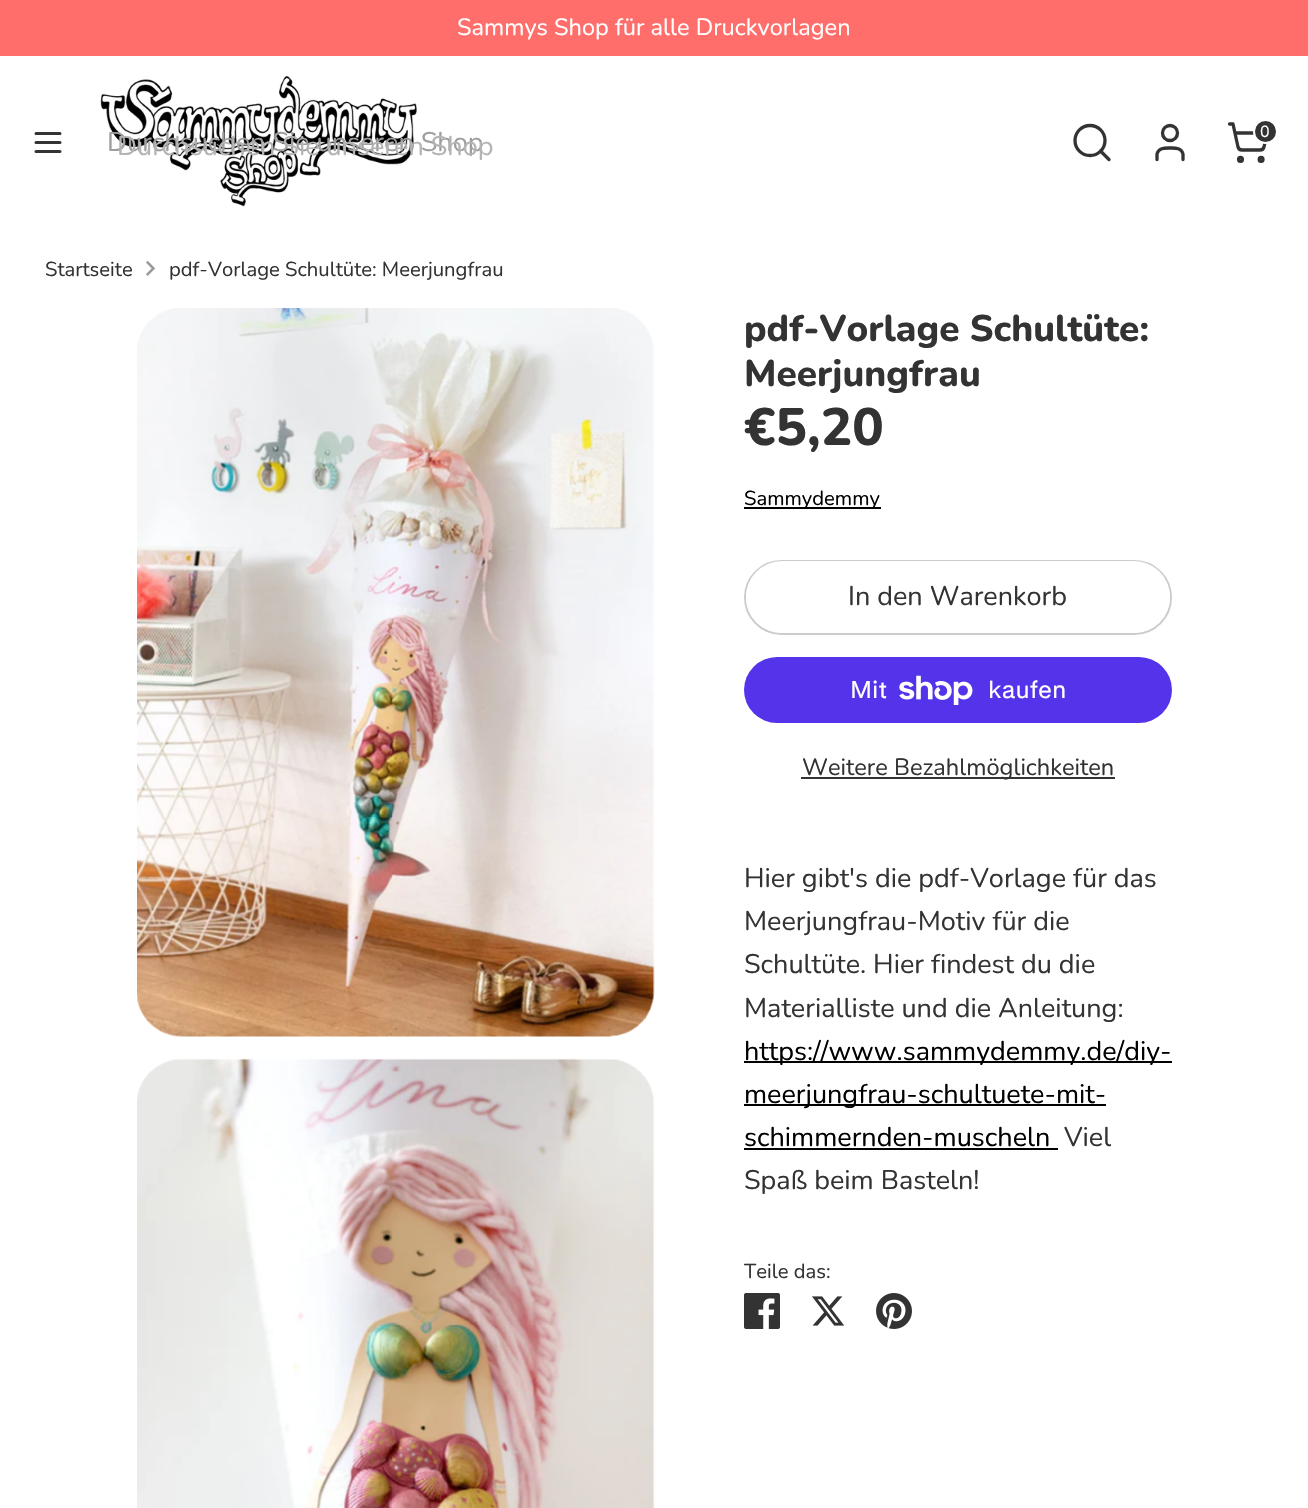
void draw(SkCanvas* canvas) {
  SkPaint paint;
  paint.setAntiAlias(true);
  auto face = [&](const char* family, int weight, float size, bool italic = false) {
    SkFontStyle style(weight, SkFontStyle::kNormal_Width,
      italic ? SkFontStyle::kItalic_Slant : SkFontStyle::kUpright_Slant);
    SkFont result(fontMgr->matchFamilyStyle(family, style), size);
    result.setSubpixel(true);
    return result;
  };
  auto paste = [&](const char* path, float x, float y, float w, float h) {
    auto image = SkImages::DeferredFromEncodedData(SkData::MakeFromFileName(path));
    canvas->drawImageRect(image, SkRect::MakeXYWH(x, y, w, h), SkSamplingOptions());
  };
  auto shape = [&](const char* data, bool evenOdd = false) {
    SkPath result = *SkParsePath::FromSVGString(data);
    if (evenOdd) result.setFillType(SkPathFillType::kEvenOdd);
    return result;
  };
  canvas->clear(0xffffffff);
  paint.setColor(0xffff6e6b);
  canvas->drawRect(SkRect::MakeXYWH(0, 0, 1308, 56), paint);
  paste("img/1.png", 100, 75, 317, 132);
  paint.setStroke(true);
  paint.setStrokeWidth(3);
  paint.setStrokeCap(SkPaint::kRound_Cap);
  paint.setStrokeJoin(SkPaint::kRound_Join);
  paint.setColor(0xff333333);
  canvas->drawPath(shape("M36 142.5H60M36 133.5H60M36 151.5H60"), paint);
  paint.setStrokeWidth(3.3f);
  paint.setStrokeCap(SkPaint::kButt_Cap);
  paint.setStrokeJoin(SkPaint::kMiter_Join);
  canvas->drawCircle(1090, 140.5f, 15, paint);
  paint.setStrokeCap(SkPaint::kRound_Cap);
  paint.setStrokeJoin(SkPaint::kRound_Join);
  canvas->drawPath(shape("M1109 159.5L1100.5 151"), paint);
  canvas->drawPath(shape("M1183 159.5V154C1181.5 147.5 1175 148 1170 148C1165 148 1158.5 147.5 1157 154V159.5"), paint);
  paint.setStrokeCap(SkPaint::kButt_Cap);
  paint.setStrokeJoin(SkPaint::kMiter_Join);
  canvas->drawCircle(1170, 133, 7.5f, paint);
  canvas->drawCircle(1240.5f, 159.4f, 1.9f, paint);
  canvas->drawCircle(1261.1f, 159.4f, 1.9f, paint);
  paint.setStrokeCap(SkPaint::kRound_Cap);
  paint.setStrokeJoin(SkPaint::kRound_Join);
  canvas->drawPath(shape("M1229.5 124H1233L1238 147C1238.5 149 1240 150 1242 150H1260C1262 150 1263.5 149 1264 147L1267 133H1235"), paint);
  paint.setStroke(false);
  canvas->drawCircle(1265.5f, 131.5f, 11.5f, paint);
  paint.setStroke(true);
  paint.setStrokeWidth(2);
  paint.setStrokeCap(SkPaint::kButt_Cap);
  paint.setStrokeJoin(SkPaint::kMiter_Join);
  paint.setColor(0xffffffff);
  canvas->drawCircle(1265.5f, 131.5f, 11.5f, paint);
  paste("img/2.png", 146, 260, 10, 16);
  paste("img/3.png", 137, 308, 518, 729);
  paste("img/4.png", 137, 1058, 518, 450);
  paint.setStroke(false);
  paint.setColor(0xff000000);
  canvas->drawRect(SkRect::MakeXYWH(744, 507, 137, 2), paint);
  paint.setStroke(true);
  paint.setColor(0xffcccccc);
  canvas->drawRoundRect(SkRect::MakeXYWH(745, 561, 426, 73), 36.5f, 36.5f, paint);
  paint.setStroke(false);
  paint.setColor(0xffffffff);
  canvas->drawRoundRect(SkRect::MakeXYWH(746, 561, 424, 72), 36, 36, paint);
  paint.setColor(0xff5433eb);
  canvas->drawRoundRect(SkRect::MakeXYWH(744, 657, 428, 66), 33, 33, paint);
  paste("img/5.png", 899, 675, 74, 30);
  {
    const struct { float x, y, w, h; SkColor color; } items[] = {
      {801, 777, 314, 2, 0xff333333},
      {744, 1061, 428, 2, 0xff000000},
      {744, 1104, 362, 2, 0xff000000},
      {744, 1148, 314, 2, 0xff000000},
    };
    for (auto [x, y, w, h, color] : items) {
      paint.setColor(color);
      canvas->drawRect(SkRect::MakeXYWH(x, y, w, h), paint);
    }
  }
  paste("img/6.png", 744, 1293, 36, 36);
  paste("img/7.png", 812, 1296, 33, 30);
  paste("img/8.png", 876, 1293, 36, 36);
  auto f0 = face("Nunito", 400, 23.6f);
  paint.setColor(0xffffffff);
  canvas->drawString("Sammys Shop für alle Druckvorlagen", 457, 35, f0, paint);
  auto f1 = face("Nunito", 400, 27);
  paint.setColor(0xff9e9e9e);
  canvas->drawString("Durchsuchen Sie unseren Shop", 107, 151, f1, paint);
  auto f2 = face("Nunito", 400, 16);
  paint.setColor(0xffffffff);
  canvas->drawString("0", 1260, 137, f2, paint);
  paint.setColor(0xffb4b4b4);
  canvas->drawString("Durchsuchen Sie unseren Shop", 117, 155, f1, paint);
  auto f3 = face("Nunito", 400, 20.25f);
  paint.setColor(0xff333333);
  canvas->drawString("Startseite", 45, 276, f3, paint);
  canvas->drawString("pdf-Vorlage Schultüte: Meerjungfrau", 169, 276, f3, paint);
  auto f4 = face("Nunito", 800, 37);
  canvas->drawString("pdf-Vorlage Schultüte:", 744, 341, f4, paint);
  canvas->drawString("Meerjungfrau", 744, 386, f4, paint);
  auto f5 = face("Nunito", 800, 52.5f);
  canvas->drawString("€5,20", 744, 445, f5, paint);
  paint.setColor(0xff000000);
  canvas->drawString("Sammydemmy", 744, 505, f3, paint);
  paint.setColor(0xff333333);
  canvas->drawString("In den Warenkorb", 848, 605, f1, paint);
  auto f6 = face("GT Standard", 400, 24);
  paint.setColor(0xffffffff);
  canvas->drawString("Mit", 850, 698, f6, paint);
  canvas->drawString("kaufen", 988, 698, f6, paint);
  paint.setColor(0xff333333);
  canvas->drawString("Weitere Bezahlmöglichkeiten", 802, 775, f0, paint);
  {
    const struct { const char* s; float x, y; } items[] = {
      {"Hier gibt's die pdf-Vorlage für das", 744, 887},
      {"Meerjungfrau-Motiv für die", 744, 930},
      {"Schultüte. Hier findest du die", 744, 973},
      {"Materialliste und die Anleitung:", 744, 1017},
    };
    for (auto [s, x, y] : items) {
      canvas->drawString(s, x, y, f1, paint);
    }
  }
  paint.setColor(0xff000000);
  {
    const struct { const char* s; float x, y; } items[] = {
      {"https://www.sammydemmy.de/diy-", 744, 1060},
      {"meerjungfrau-schultuete-mit-", 744, 1103},
      {"schimmernden-muscheln", 744, 1146},
    };
    for (auto [s, x, y] : items) {
      canvas->drawString(s, x, y, f1, paint);
    }
  }
  paint.setColor(0xff333333);
  canvas->drawString("Viel", 1064, 1146, f1, paint);
  canvas->drawString("Spaß beim Basteln!", 744, 1189, f1, paint);
  canvas->drawString("Teile das:", 744, 1278, f3, paint);
}
